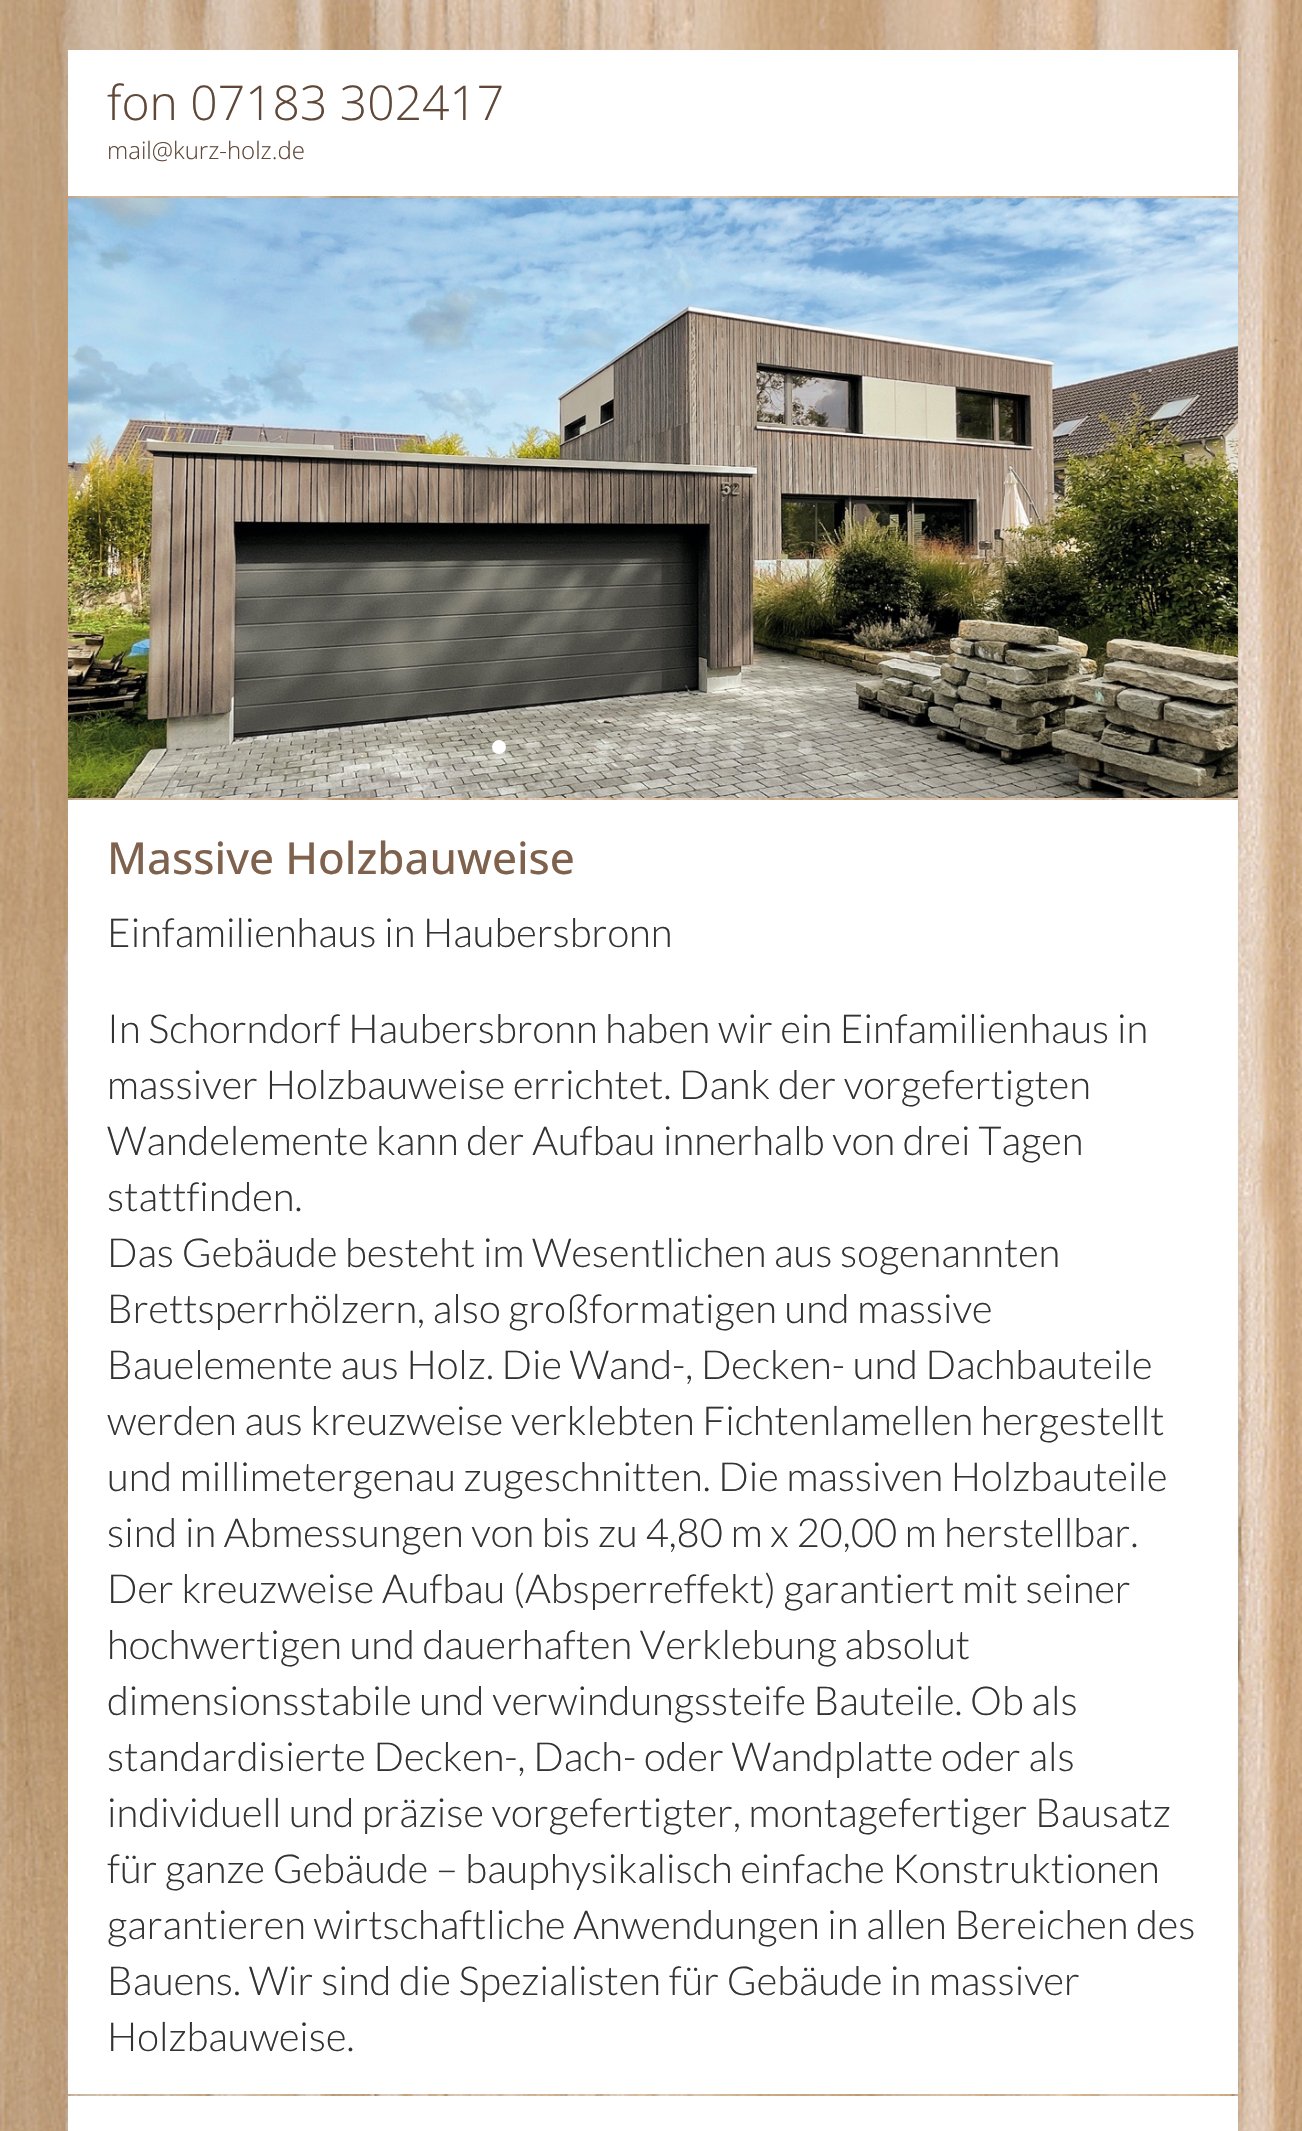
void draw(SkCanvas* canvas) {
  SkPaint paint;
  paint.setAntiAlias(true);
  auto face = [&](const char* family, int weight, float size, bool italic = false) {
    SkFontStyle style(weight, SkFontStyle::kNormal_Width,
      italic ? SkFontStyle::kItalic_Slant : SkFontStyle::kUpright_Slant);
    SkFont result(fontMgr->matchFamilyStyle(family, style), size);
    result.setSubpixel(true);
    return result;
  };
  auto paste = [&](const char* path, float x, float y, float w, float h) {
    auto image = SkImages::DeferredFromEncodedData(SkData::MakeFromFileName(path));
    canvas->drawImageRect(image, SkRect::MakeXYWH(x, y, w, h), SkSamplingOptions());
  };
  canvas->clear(0xffffffff);
  paste("img/1.png", 0, 0, 1302, 2131);
  paint.setColor(0xffffffff);
  canvas->drawRect(SkRect::MakeXYWH(68, 50, 1170, 146), paint);
  paste("img/2.png", 68, 198, 1170, 600);
  canvas->drawCircle(499, 747, 7, paint);
  paint.setColor(0x40ffffff);
  canvas->drawCircle(533, 747, 7, paint);
  canvas->drawCircle(567, 747, 7, paint);
  canvas->drawCircle(601, 747, 7, paint);
  canvas->drawCircle(635, 747, 7, paint);
  canvas->drawCircle(669, 747, 7, paint);
  canvas->drawCircle(703, 747, 7, paint);
  canvas->drawCircle(737, 747, 7, paint);
  canvas->drawCircle(771, 747, 7, paint);
  canvas->drawCircle(805, 747, 7, paint);
  paint.setColor(0xffffffff);
  canvas->drawRect(SkRect::MakeXYWH(68, 800, 1170, 1294), paint);
  canvas->drawRect(SkRect::MakeXYWH(68, 2096, 1170, 35), paint);
  auto f0 = face("Open Sans", 300, 48);
  paint.setColor(0xff604838);
  canvas->drawString("fon 07183 302417", 107, 120, f0, paint);
  auto f1 = face("Open Sans", 300, 24);
  canvas->drawString("mail@kurz-holz.de", 107, 159, f1, paint);
  auto f2 = face("Open Sans", 500, 44);
  paint.setColor(0xff7e624d);
  canvas->drawString("Massive Holzbauweise", 107, 874, f2, paint);
  auto f3 = face("Lato", 300, 40);
  paint.setColor(0xff333333);
  {
    const struct { const char* s; float x, y; } items[] = {
      {"Einfamilienhaus in Haubersbronn", 107, 947},
      {"In Schorndorf Haubersbronn haben wir ein Einfamilienhaus in", 107, 1043},
      {"massiver Holzbauweise errichtet. Dank der vorgefertigten", 107, 1099},
      {"Wandelemente kann der Aufbau innerhalb von drei Tagen", 107, 1155},
      {"stattfinden.", 107, 1211},
      {"Das Gebäude besteht im Wesentlichen aus sogenannten", 107, 1267},
      {"Brettsperrhölzern, also großformatigen und massive", 107, 1323},
      {"Bauelemente aus Holz. Die Wand-, Decken- und Dachbauteile", 107, 1379},
      {"werden aus kreuzweise verklebten Fichtenlamellen hergestellt", 107, 1435},
      {"und millimetergenau zugeschnitten. Die massiven Holzbauteile", 107, 1491},
      {"sind in Abmessungen von bis zu 4,80 m x 20,00 m herstellbar.", 107, 1547},
      {"Der kreuzweise Aufbau (Absperreffekt) garantiert mit seiner", 107, 1603},
      {"hochwertigen und dauerhaften Verklebung absolut", 107, 1659},
      {"dimensionsstabile und verwindungssteife Bauteile. Ob als", 107, 1715},
      {"standardisierte Decken-, Dach- oder Wandplatte oder als", 107, 1771},
      {"individuell und präzise vorgefertigter, montagefertiger Bausatz", 107, 1827},
      {"für ganze Gebäude – bauphysikalisch einfache Konstruktionen", 107, 1883},
      {"garantieren wirtschaftliche Anwendungen in allen Bereichen des", 107, 1939},
      {"Bauens. Wir sind die Spezialisten für Gebäude in massiver", 107, 1995},
      {"Holzbauweise.", 107, 2051},
    };
    for (auto [s, x, y] : items) {
      canvas->drawString(s, x, y, f3, paint);
    }
  }
}
